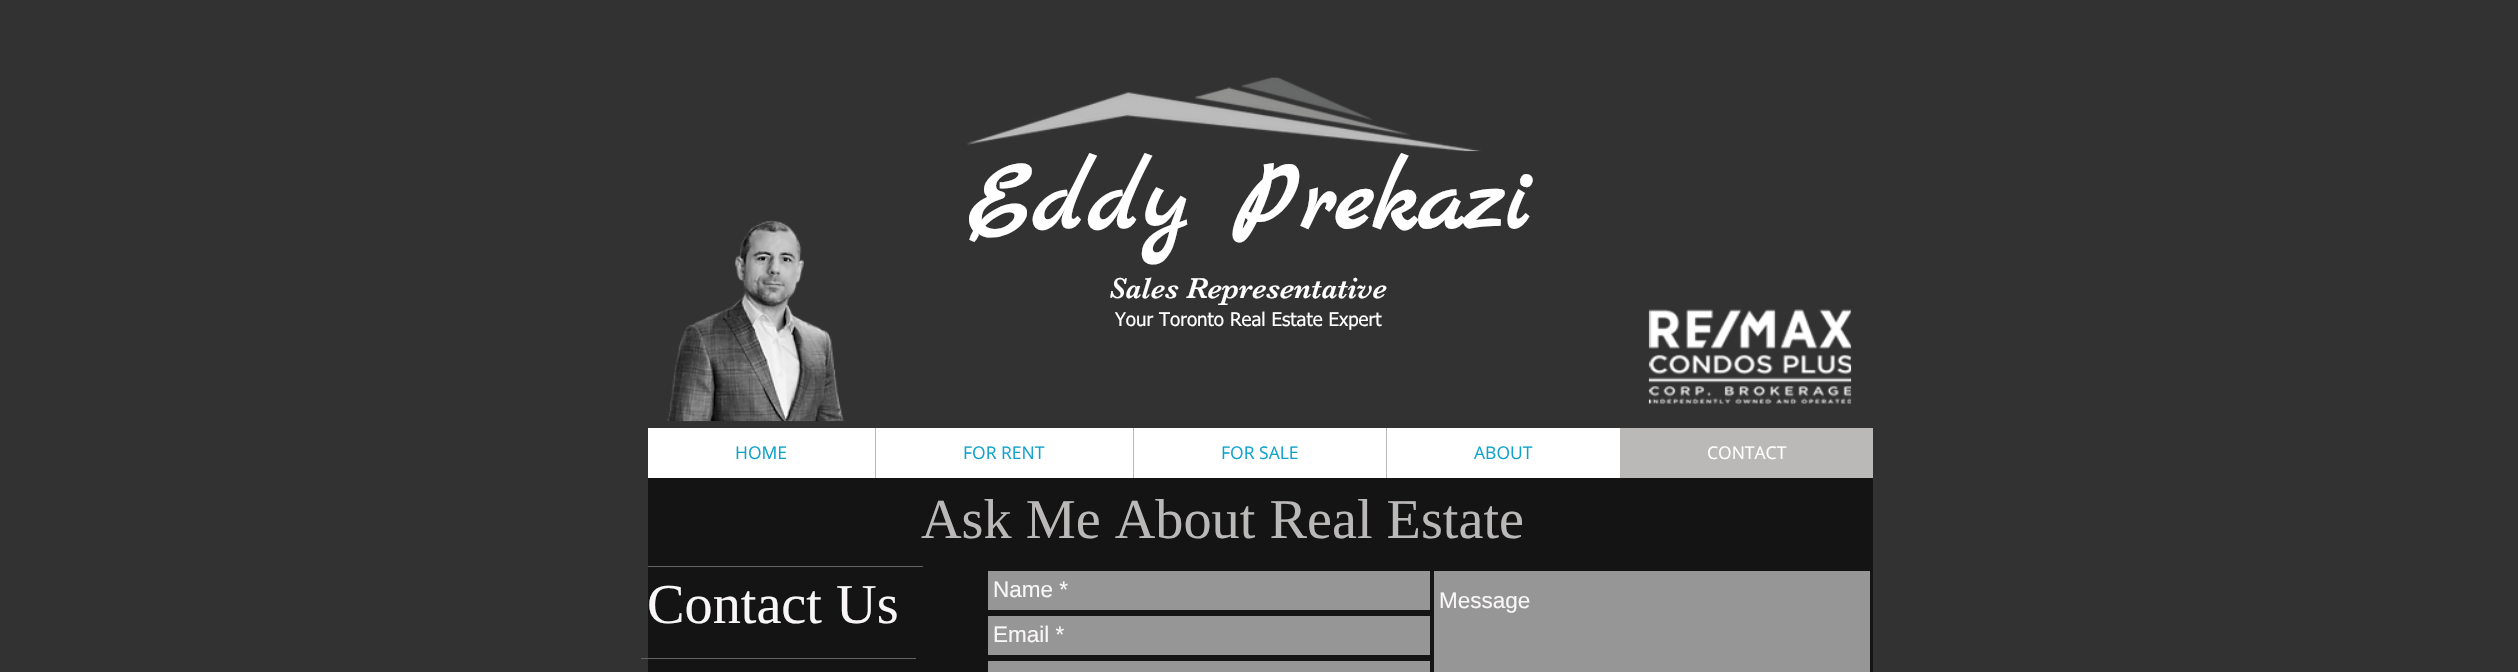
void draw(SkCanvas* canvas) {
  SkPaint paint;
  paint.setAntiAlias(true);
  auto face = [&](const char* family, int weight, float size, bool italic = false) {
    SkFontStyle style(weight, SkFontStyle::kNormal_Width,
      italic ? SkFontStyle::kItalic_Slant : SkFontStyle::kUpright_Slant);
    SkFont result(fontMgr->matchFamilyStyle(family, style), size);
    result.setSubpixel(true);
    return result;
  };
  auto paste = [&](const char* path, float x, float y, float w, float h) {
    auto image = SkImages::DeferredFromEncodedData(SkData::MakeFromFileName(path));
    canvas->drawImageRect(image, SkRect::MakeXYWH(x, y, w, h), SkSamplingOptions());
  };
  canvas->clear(0xff323232);
  paste("img/1.png", 967, 77, 515, 75);
  paste("img/2.png", 667, 220, 177, 202);
  paste("img/3.png", 1648, 309, 204, 95);
  {
    const struct { float x, y, w, h; SkColor color; } items[] = {
      {648, 428, 972, 50, 0xffffffff},
      {875, 428, 1, 50, 0xffbbb8b8},
      {1133, 428, 1, 50, 0xffbbb8b8},
      {1386, 428, 1, 50, 0xffbbb8b8},
      {1620, 428, 253, 50, 0xffbbb8b8},
      {648, 478, 1225, 194, 0xff141414},
      {648, 566, 275, 1, 0xff646464},
      {988, 571, 442, 39, 0xff969696},
      {1434, 571, 436, 101, 0xff969696},
      {988, 616, 442, 39, 0xff969696},
      {988, 661, 442, 11, 0xff969696},
      {641, 658, 275, 1, 0xff646464},
    };
    for (auto [x, y, w, h, color] : items) {
      paint.setColor(color);
      canvas->drawRect(SkRect::MakeXYWH(x, y, w, h), paint);
    }
  }
  auto f0 = face("Marck Script", 700, 98.75f);
  paint.setColor(0xffffffff);
  canvas->drawString("Eddy Prekazi", 966, 229, f0, paint);
  auto f1 = face("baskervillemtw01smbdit", 400, 30);
  canvas->drawString("Sales Representative", 1109, 298, f1, paint);
  auto f2 = face("tahoma", 400, 18.75f);
  canvas->drawString("Your Toronto Real Estate Expert", 1115, 326, f2, paint);
  auto f3 = face("Open Sans", 400, 17.5f);
  paint.setColor(0xff0ea2cc);
  {
    const struct { const char* s; float x, y; } items[] = {
      {"HOME", 735, 459},
      {"FOR RENT", 963, 459},
      {"FOR SALE", 1221, 459},
      {"ABOUT", 1474, 459},
    };
    for (auto [s, x, y] : items) {
      canvas->drawString(s, x, y, f3, paint);
    }
  }
  paint.setColor(0xffffffff);
  canvas->drawString("CONTACT", 1707, 459, f3, paint);
  auto f4 = face("Liberation Serif", 400, 56.25f);
  paint.setColor(0xffbbb8b8);
  canvas->drawString("Ask Me About Real Estate", 921, 538, f4, paint);
  paint.setColor(0xfff8f6f6);
  canvas->drawString("Contact Us", 647, 623, f4, paint);
  auto f5 = face("Liberation Sans", 400, 22.5f);
  {
    const struct { const char* s; float x, y; } items[] = {
      {"Name *", 993, 597},
      {"Message", 1439, 608},
      {"Email *", 993, 642},
    };
    for (auto [s, x, y] : items) {
      canvas->drawString(s, x, y, f5, paint);
    }
  }
}
